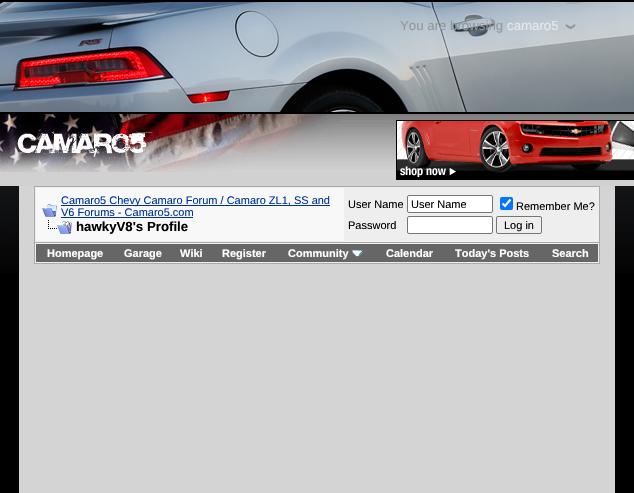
void draw(SkCanvas* canvas) {
  SkPaint paint;
  paint.setAntiAlias(true);
  auto face = [&](const char* family, int weight, float size, bool italic = false) {
    SkFontStyle style(weight, SkFontStyle::kNormal_Width,
      italic ? SkFontStyle::kItalic_Slant : SkFontStyle::kUpright_Slant);
    SkFont result(fontMgr->matchFamilyStyle(family, style), size);
    result.setSubpixel(true);
    return result;
  };
  auto paste = [&](const char* path, float x, float y, float w, float h) {
    auto image = SkImages::DeferredFromEncodedData(SkData::MakeFromFileName(path));
    canvas->drawImageRect(image, SkRect::MakeXYWH(x, y, w, h), SkSamplingOptions());
  };
  auto shape = [&](const char* data, bool evenOdd = false) {
    SkPath result = *SkParsePath::FromSVGString(data);
    if (evenOdd) result.setFillType(SkPathFillType::kEvenOdd);
    return result;
  };
  canvas->clear(0xff000000);
  paste("img/1.png", 0, 186, 634, 87);
  paste("img/2.png", 0, 2, 634, 110);
  paste("img/3.png", 565, 24, 11, 6);
  paint.setColor(0xffd1d1d1);
  canvas->drawRect(SkRect::MakeXYWH(0, 166, 634, 20), paint);
  paste("img/4.png", 391, 114, 243, 52);
  paste("img/5.png", 0, 114, 391, 58);
  paste("img/6.png", 396, 120, 238, 60);
  paint.setColor(0xffd4d4d4);
  canvas->drawRect(SkRect::MakeXYWH(19, 186, 596, 307), paint);
  paint.setColor(0xffeeeeee);
  canvas->drawRect(SkRect::MakeXYWH(34.5f, 186.5f, 565, 56), paint);
  paint.setStroke(true);
  paint.setStrokeWidth(1);
  paint.setColor(0xffaaaaaa);
  canvas->drawRect(SkRect::MakeXYWH(34.5f, 186.5f, 565, 56), paint);
  paint.setStroke(false);
  paint.setColor(0xfff8f8f8);
  canvas->drawRect(SkRect::MakeXYWH(36, 188, 308, 53), paint);
  paste("img/7.png", 42, 204, 15, 13);
  paint.setColor(0xff003399);
  canvas->drawRect(SkRect::MakeXYWH(61, 205, 269, 1), paint);
  canvas->drawRect(SkRect::MakeXYWH(61, 217, 132, 1), paint);
  paste("img/8.png", 48, 220, 24, 14);
  paint.setColor(0xffffffff);
  canvas->drawRoundRect(SkRect::MakeXYWH(407.5f, 195.5f, 85, 17), 1.5f, 1.5f, paint);
  paint.setStroke(true);
  paint.setColor(0xff767676);
  canvas->drawRoundRect(SkRect::MakeXYWH(407.5f, 195.5f, 85, 17), 1.5f, 1.5f, paint);
  paint.setStroke(false);
  paint.setColor(0xff0075ff);
  canvas->drawRoundRect(SkRect::MakeXYWH(500, 197, 13, 13), 2, 2, paint);
  paint.setStroke(true);
  paint.setStrokeWidth(2.1f);
  paint.setColor(0xffffffff);
  canvas->drawPath(shape("M502.5 203.5L505 206L510.5 199.5"), paint);
  paint.setStroke(false);
  canvas->drawRoundRect(SkRect::MakeXYWH(407.5f, 216.5f, 85, 17), 1.5f, 1.5f, paint);
  paint.setStroke(true);
  paint.setStrokeWidth(1);
  paint.setColor(0xff767676);
  canvas->drawRoundRect(SkRect::MakeXYWH(407.5f, 216.5f, 85, 17), 1.5f, 1.5f, paint);
  canvas->drawRoundRect(SkRect::MakeXYWH(496.5f, 216.5f, 45, 17), 1.5f, 1.5f, paint);
  paint.setStroke(false);
  {
    const struct { float x, y, w, h; SkColor color; } items[] = {
      {35, 243, 564, 20, 0xffeeeeee},
      {599, 243, 1, 21, 0xffaaaaaa},
      {34, 263, 566, 1, 0xffaaaaaa},
      {34, 243, 1, 21, 0xffaaaaaa},
      {36, 244, 562, 18, 0xff666666},
    };
    for (auto [x, y, w, h, color] : items) {
      paint.setColor(color);
      canvas->drawRect(SkRect::MakeXYWH(x, y, w, h), paint);
    }
  }
  paste("img/9.png", 352, 250, 11, 7);
  auto f0 = face("Liberation Sans", 400, 13.25f);
  paint.setColor(0xff92979b);
  canvas->drawString("You are browsing", 400, 30, f0, paint);
  paint.setColor(0xffe5e9ed);
  canvas->drawString("camaro5", 507, 30, f0, paint);
  auto f1 = face("Liberation Sans", 400, 11);
  paint.setColor(0xff003399);
  canvas->drawString("Camaro5 Chevy Camaro Forum / Camaro ZL1, SS and", 61, 204, f1, paint);
  canvas->drawString("V6 Forums - Camaro5.com", 61, 216, f1, paint);
  auto f2 = face("Liberation Sans", 700, 13.25f);
  paint.setColor(0xff000000);
  canvas->drawString("hawkyV8's Profile", 76, 231, f2, paint);
  {
    const struct { const char* s; float x, y; } items[] = {
      {"User Name", 348, 208},
      {"User Name", 411, 208},
      {"Remember Me?", 516, 210},
      {"Password", 348, 229},
      {"Log in", 504, 229},
    };
    for (auto [s, x, y] : items) {
      canvas->drawString(s, x, y, f1, paint);
    }
  }
  auto f3 = face("Liberation Sans", 700, 11);
  paint.setColor(0xffffffff);
  {
    const struct { const char* s; float x, y; } items[] = {
      {"Homepage", 47, 257},
      {"Garage", 124, 257},
      {"Wiki", 180, 257},
      {"Register", 222, 257},
      {"Community", 288, 257},
      {"Calendar", 386, 257},
      {"Today's Posts", 455, 257},
      {"Search", 552, 257},
    };
    for (auto [s, x, y] : items) {
      canvas->drawString(s, x, y, f3, paint);
    }
  }
}
